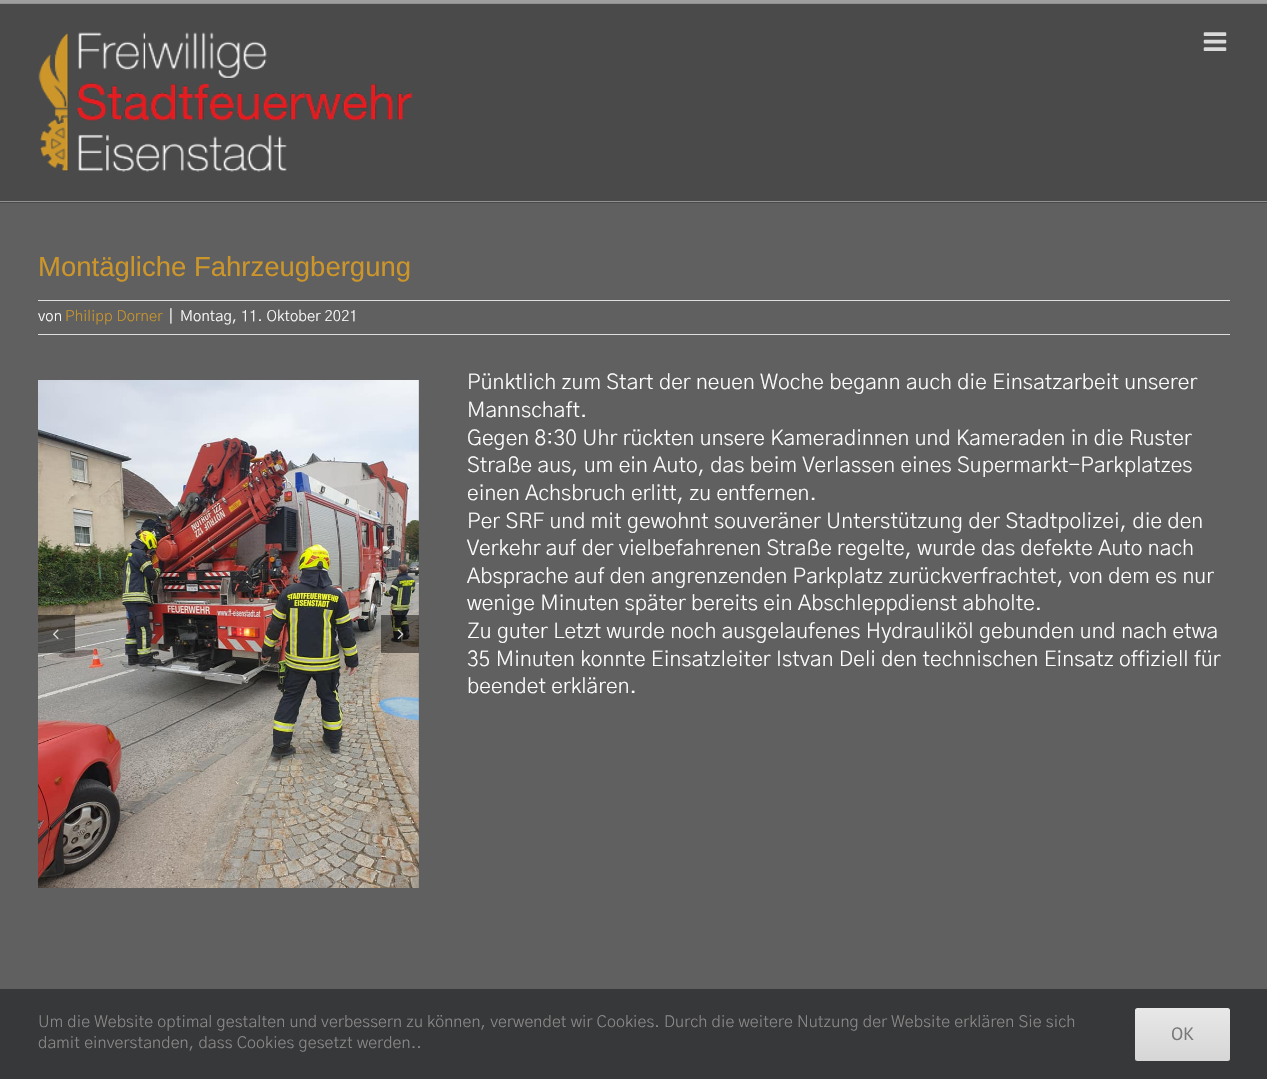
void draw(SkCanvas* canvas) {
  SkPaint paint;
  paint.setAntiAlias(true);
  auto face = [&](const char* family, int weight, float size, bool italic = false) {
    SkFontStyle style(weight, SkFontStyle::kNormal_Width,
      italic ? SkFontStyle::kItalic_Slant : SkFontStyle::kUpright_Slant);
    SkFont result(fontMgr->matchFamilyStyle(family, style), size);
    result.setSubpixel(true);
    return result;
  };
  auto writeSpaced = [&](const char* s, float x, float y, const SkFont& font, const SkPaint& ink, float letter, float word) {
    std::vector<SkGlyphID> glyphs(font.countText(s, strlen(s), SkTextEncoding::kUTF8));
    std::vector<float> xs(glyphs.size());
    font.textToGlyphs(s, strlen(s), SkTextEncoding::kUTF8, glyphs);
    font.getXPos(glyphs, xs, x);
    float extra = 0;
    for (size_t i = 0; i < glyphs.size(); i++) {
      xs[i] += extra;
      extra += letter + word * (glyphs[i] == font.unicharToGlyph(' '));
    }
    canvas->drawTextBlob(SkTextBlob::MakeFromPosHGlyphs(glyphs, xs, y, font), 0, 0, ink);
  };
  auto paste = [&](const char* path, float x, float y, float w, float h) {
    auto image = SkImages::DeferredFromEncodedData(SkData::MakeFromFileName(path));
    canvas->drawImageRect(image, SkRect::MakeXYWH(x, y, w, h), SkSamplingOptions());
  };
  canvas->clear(0xff606060);
  {
    const struct { float x, y, w, h; SkColor color; } items[] = {
      {0, 0, 1267, 3, 0xff9e9e9e},
      {0, 3, 1267, 1, 0xff919191},
      {0, 4, 1267, 199, 0xff4a4a4a},
      {0, 201, 1267, 1, 0xff919191},
    };
    for (auto [x, y, w, h, color] : items) {
      paint.setColor(color);
      canvas->drawRect(SkRect::MakeXYWH(x, y, w, h), paint);
    }
  }
  paste("img/1.png", 38, 32, 375, 140);
  paste("img/2.png", 1203, 32, 24, 19);
  paint.setColor(0xffe0dede);
  canvas->drawRect(SkRect::MakeXYWH(38, 300, 1192, 1), paint);
  canvas->drawRect(SkRect::MakeXYWH(38, 334, 1192, 1), paint);
  paste("img/3.png", 38, 380, 381, 508);
  paint.setColor(0x7a000000);
  canvas->drawRect(SkRect::MakeXYWH(38, 615, 37, 38), paint);
  paste("img/4.png", 53, 629, 6, 10);
  canvas->drawRect(SkRect::MakeXYWH(381, 615, 38, 38), paint);
  paste("img/5.png", 397, 629, 7, 10);
  paint.setColor(0xff363839);
  canvas->drawRect(SkRect::MakeXYWH(0, 989, 1267, 90), paint);
  {
    const SkColor colors[] = {0xffe8e8e8, 0xffd6d6d6};
    const float stops[] = {0, 1};
    const SkPoint ends[] = {{1183, 1008}, {1183, 1061}};
    paint.setShader(SkGradientShader::MakeLinear(ends, colors, stops, 2, SkTileMode::kClamp));
    paint.setAlpha(255);
  }
  canvas->drawRoundRect(SkRect::MakeXYWH(1135, 1008, 95, 53), 2.5f, 2.5f, paint);
  auto f0 = face("Liberation Sans", 400, 27.5f);
  paint.setShader(nullptr);
  paint.setColor(0xffcc962b);
  canvas->drawString("Montägliche Fahrzeugbergung", 38, 276, f0, paint);
  auto f1 = face("Gothic A1", 300, 15);
  paint.setColor(0xffffffff);
  writeSpaced("von", 38, 321, f1, paint, 0.12f, 0);
  paint.setColor(0xffcc962b);
  writeSpaced("Philipp Dorner", 65, 321, f1, paint, 0.12f, 0);
  paint.setColor(0xffffffff);
  writeSpaced("|", 169, 321, f1, paint, 0.12f, 0);
  writeSpaced("Montag, 11. Oktober 2021", 180, 321, f1, paint, 0.12f, 0);
  auto f2 = face("Gothic A1", 300, 21.25f);
  {
    const struct { const char* s; float x, y; } items[] = {
      {"Pünktlich zum Start der neuen Woche begann auch die Einsatzarbeit unserer", 467, 389},
      {"Mannschaft.", 467, 417},
      {"Gegen 8:30 Uhr rückten unsere Kameradinnen und Kameraden in die Ruster", 467, 445},
      {"Straße aus, um ein Auto, das beim Verlassen eines Supermarkt-Parkplatzes", 467, 472},
      {"einen Achsbruch erlitt, zu entfernen.", 467, 500},
      {"Per SRF und mit gewohnt souveräner Unterstützung der Stadtpolizei, die den", 467, 528},
      {"Verkehr auf der vielbefahrenen Straße regelte, wurde das defekte Auto nach", 467, 555},
      {"Absprache auf den angrenzenden Parkplatz zurückverfrachtet, von dem es nur", 467, 583},
      {"wenige Minuten später bereits ein Abschleppdienst abholte.", 467, 610},
      {"Zu guter Letzt wurde noch ausgelaufenes Hydrauliköl gebunden und nach etwa", 467, 638},
      {"35 Minuten konnte Einsatzleiter Istvan Deli den technischen Einsatz offiziell für", 467, 666},
      {"beendet erklären.", 467, 693},
    };
    for (auto [s, x, y] : items) {
      writeSpaced(s, x, y, f2, paint, 0.12f, 0);
    }
  }
  auto f3 = face("Gothic A1", 300, 16.25f);
  paint.setColor(0xff8c8989);
  writeSpaced("Um die Website optimal gestalten und verbessern zu können, verwendet wir Cookies. Durch die weitere Nutzung der Website erklären Sie sich", 38, 1027, f3, paint, 0.12f, 0);
  writeSpaced("damit einverstanden, dass Cookies gesetzt werden..", 38, 1048, f3, paint, 0.12f, 0);
  auto f4 = face("PT Sans", 400, 18);
  paint.setColor(0xff787878);
  canvas->drawString("OK", 1171, 1040, f4, paint);
}
